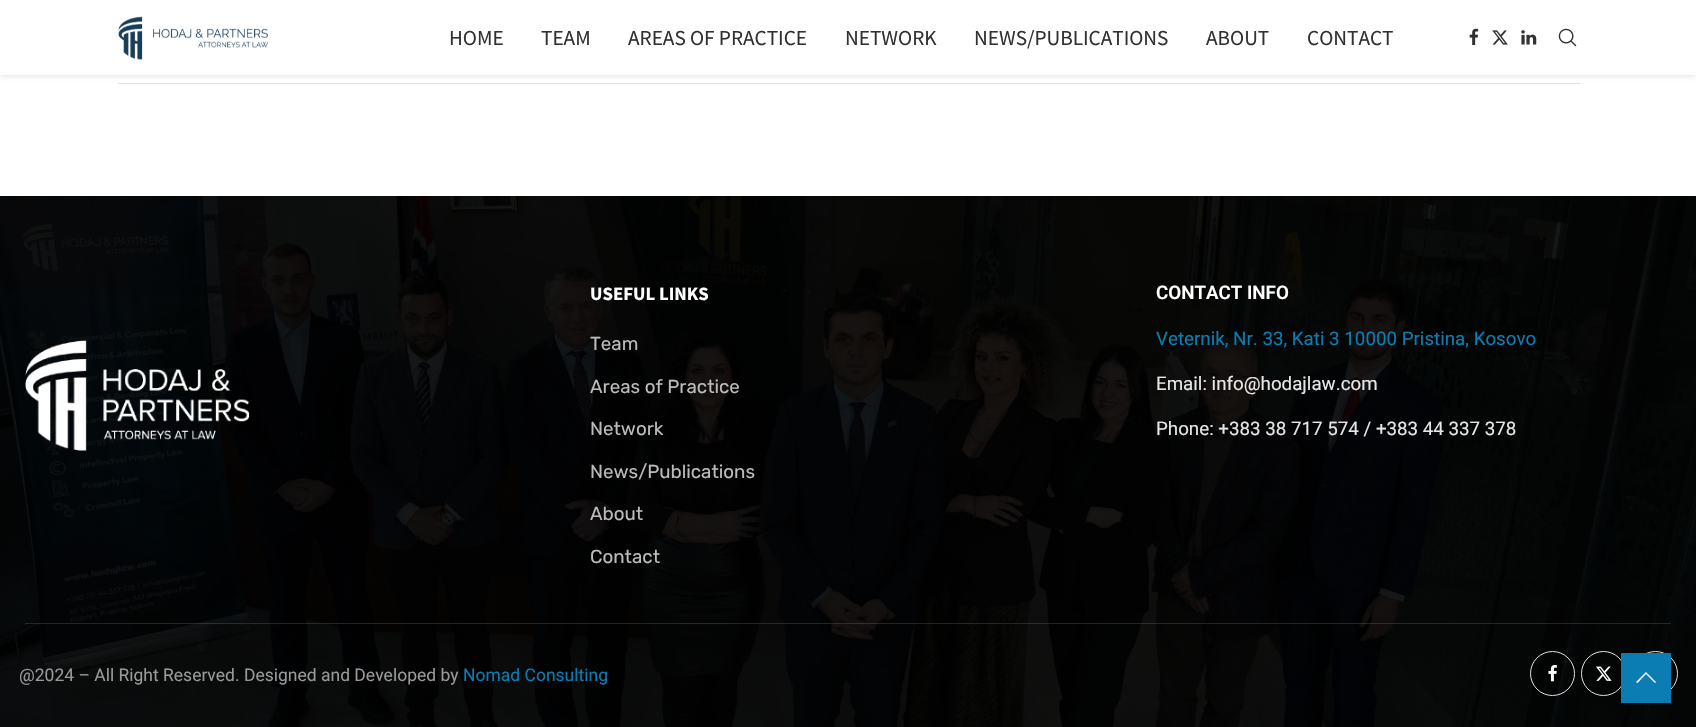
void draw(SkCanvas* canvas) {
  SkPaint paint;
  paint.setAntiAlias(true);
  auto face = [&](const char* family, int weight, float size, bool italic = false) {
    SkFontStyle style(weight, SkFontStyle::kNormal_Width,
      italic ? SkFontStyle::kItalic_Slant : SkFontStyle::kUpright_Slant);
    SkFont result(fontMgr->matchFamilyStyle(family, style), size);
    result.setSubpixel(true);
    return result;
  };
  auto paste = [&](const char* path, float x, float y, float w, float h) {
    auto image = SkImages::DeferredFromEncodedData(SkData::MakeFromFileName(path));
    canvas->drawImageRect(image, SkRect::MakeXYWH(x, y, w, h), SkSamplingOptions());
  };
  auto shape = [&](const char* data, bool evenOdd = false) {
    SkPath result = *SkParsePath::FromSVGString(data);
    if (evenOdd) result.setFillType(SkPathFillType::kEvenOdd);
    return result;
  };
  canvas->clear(0xffffffff);
  paint.setColor(0xffdedede);
  canvas->drawRect(SkRect::MakeXYWH(118, 83, 1462, 1), paint);
  paint.setColor(0x75bebebe);
  paint.setMaskFilter(SkMaskFilter::MakeBlur(kNormal_SkBlurStyle, 3));
  canvas->drawRect(SkRect::MakeXYWH(0, 1, 1696, 75), paint);
  paint.setMaskFilter(nullptr);
  paint.setColor(0xffffffff);
  canvas->drawRect(SkRect::MakeXYWH(0, 0, 1696, 75), paint);
  paste("img/1.png", 118, 16, 150, 44);
  paste("img/2.png", 1469, 28, 10, 17);
  paste("img/3.png", 1492, 30, 16, 15);
  paste("img/4.png", 1521, 30, 16, 15);
  paste("img/5.png", 1558, 28, 19, 19);
  paste("img/6.png", 0, 196, 1696, 531);
  paste("img/7.png", 25, 340, 225, 111);
  paint.setColor(0x21ffffff);
  canvas->drawRect(SkRect::MakeXYWH(25, 623, 1646, 1), paint);
  paint.setStroke(true);
  paint.setStrokeWidth(1);
  paint.setColor(0xffe0e0e0);
  canvas->drawCircle(1552.5f, 673.5f, 22, paint);
  paste("img/8.png", 1548, 665, 9, 17);
  canvas->drawCircle(1603.5f, 673.5f, 22, paint);
  paste("img/9.png", 1596, 666, 16, 15);
  canvas->drawCircle(1655.5f, 673.5f, 22, paint);
  paint.setStroke(false);
  paint.setColor(0xff0b7db3);
  canvas->drawRect(SkRect::MakeXYWH(1621, 653, 50, 50), paint);
  paint.setColor(0xffffffff);
  canvas->drawPath(shape("M1646 672L1636 682L1637.5 683L1646 674L1655 683L1656 682Z"), paint);
  auto f0 = face("Source Sans Pro", 400, 21.25f);
  paint.setColor(0xff313131);
  {
    const struct { const char* s; float x, y; } items[] = {
      {"HOME", 449, 45},
      {"TEAM", 541, 45},
      {"AREAS OF PRACTICE", 628, 45},
      {"NETWORK", 845, 45},
      {"NEWS/PUBLICATIONS", 974, 45},
      {"ABOUT", 1206, 45},
      {"CONTACT", 1307, 45},
    };
    for (auto [s, x, y] : items) {
      canvas->drawString(s, x, y, f0, paint);
    }
  }
  auto f1 = face("Source Sans Pro", 700, 18.75f);
  paint.setColor(0xffffffff);
  canvas->drawString("USEFUL LINKS", 590, 300, f1, paint);
  auto f2 = face("Rubik", 400, 18.75f);
  paint.setColor(0xffbbbbbb);
  {
    const struct { const char* s; float x, y; } items[] = {
      {"Team", 590, 350},
      {"Areas of Practice", 590, 393},
      {"Network", 590, 435},
      {"News/Publications", 590, 478},
      {"About", 590, 520},
      {"Contact", 590, 563},
    };
    for (auto [s, x, y] : items) {
      canvas->drawString(s, x, y, f2, paint);
    }
  }
  auto f3 = face("Roboto", 600, 18.75f);
  paint.setColor(0xffffffff);
  canvas->drawString("CONTACT INFO", 1156, 299, f3, paint);
  auto f4 = face("Roboto", 400, 18.75f);
  paint.setColor(0xff0b7db3);
  canvas->drawString("Veternik, Nr. 33, Kati 3 10000 Pristina, Kosovo", 1156, 345, f4, paint);
  paint.setColor(0xffe6e6e6);
  canvas->drawString("Email: info@hodajlaw.com", 1156, 390, f4, paint);
  canvas->drawString("Phone: +383 38 717 574 / +383 44 337 378", 1156, 435, f4, paint);
  auto f5 = face("Roboto", 400, 17.5f);
  paint.setColor(0xff999999);
  canvas->drawString("@2024 – All Right Reserved. Designed and Developed by", 19, 681, f5, paint);
  paint.setColor(0xff0b7db3);
  canvas->drawString("Nomad Consulting", 463, 681, f5, paint);
}
